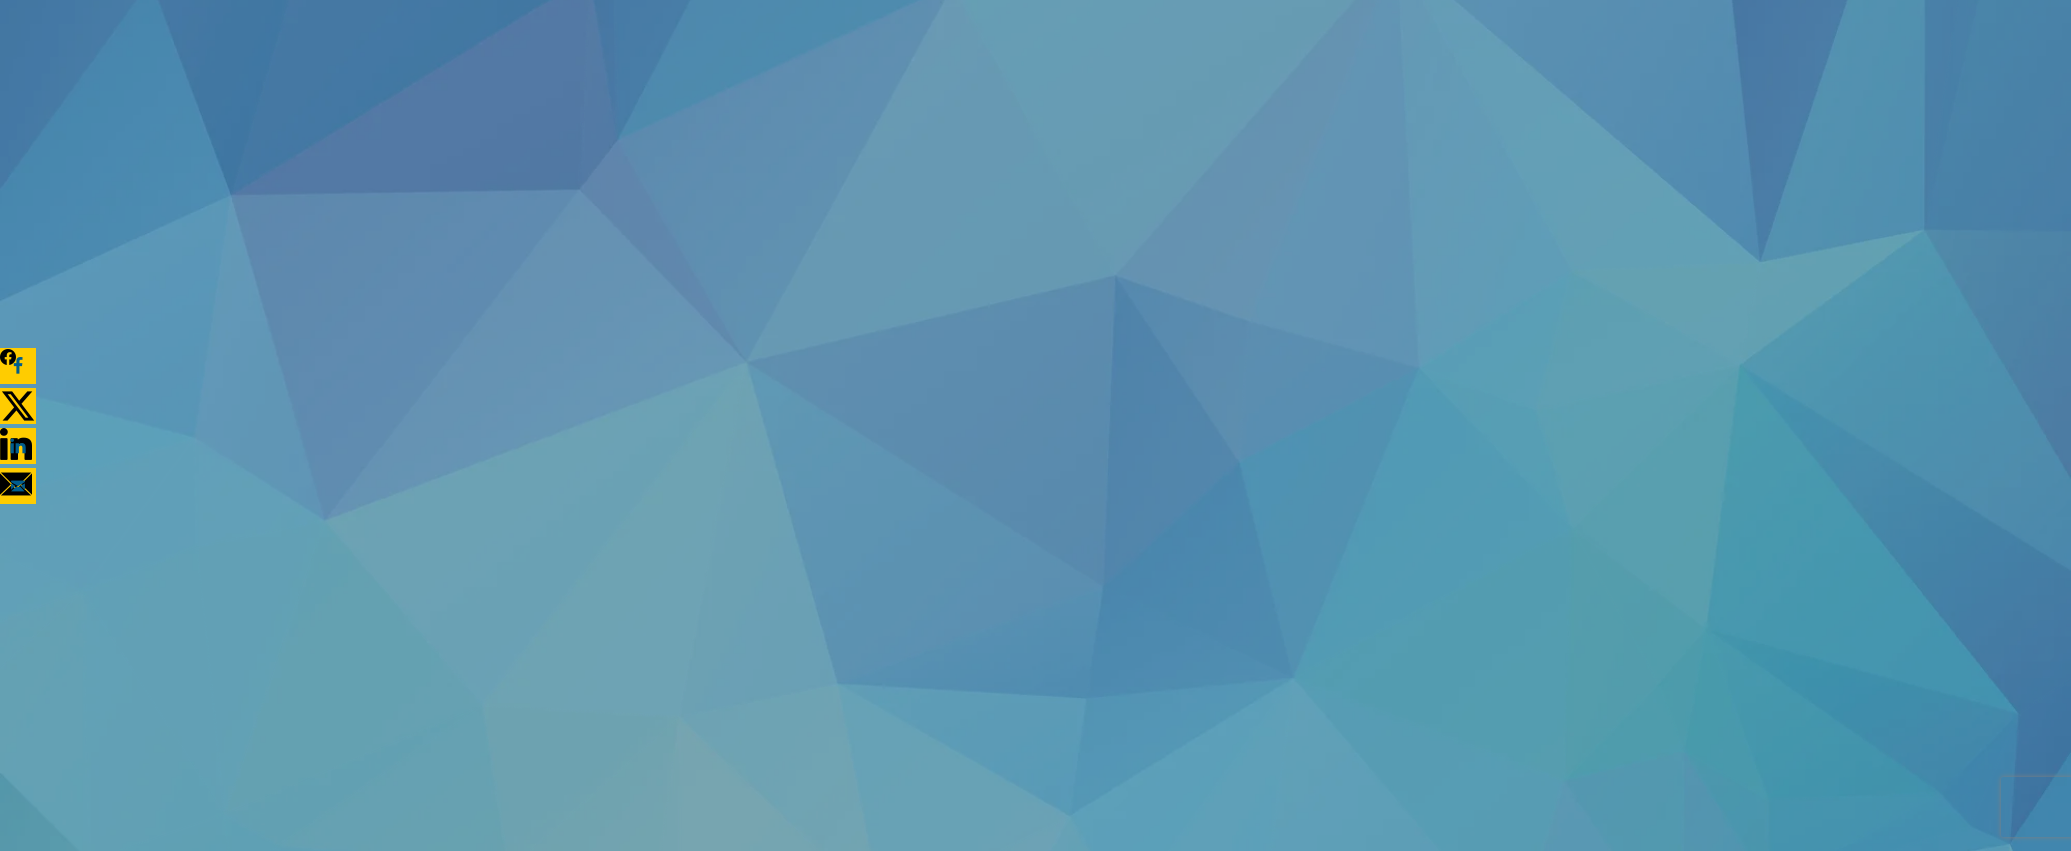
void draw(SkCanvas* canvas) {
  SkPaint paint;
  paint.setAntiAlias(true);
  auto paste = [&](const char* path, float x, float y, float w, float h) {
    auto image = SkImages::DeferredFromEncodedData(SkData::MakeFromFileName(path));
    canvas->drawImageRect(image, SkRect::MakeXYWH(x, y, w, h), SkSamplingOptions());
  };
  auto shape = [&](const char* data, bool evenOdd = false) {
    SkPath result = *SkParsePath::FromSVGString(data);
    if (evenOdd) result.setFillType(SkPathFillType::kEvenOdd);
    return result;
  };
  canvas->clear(0xffffffff);
  paste("img/1.png", 0, 0, 2071, 851);
  paste("img/2.png", 0, 0, 2071, 851);
  paint.setColor(0xffffcc00);
  canvas->drawRect(SkRect::MakeXYWH(0, 348, 36, 36), paint);
  paste("img/3.png", 0, 349, 16, 16);
  paste("img/4.png", 13, 357, 10, 17);
  canvas->drawRect(SkRect::MakeXYWH(0, 388, 36, 36), paint);
  paste("img/5.png", 2, 391, 33, 30);
  canvas->drawRect(SkRect::MakeXYWH(0, 428, 36, 36), paint);
  paste("img/6.png", 0, 428, 32, 32);
  paste("img/7.png", 10, 438, 16, 16);
  canvas->drawRect(SkRect::MakeXYWH(0, 468, 36, 36), paint);
  paste("img/8.png", 0, 472, 32, 24);
  paste("img/9.png", 11, 480, 14, 12);
  canvas->save();
  canvas->clipPath(shape("M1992 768H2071V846H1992ZM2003 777H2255C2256 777 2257 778 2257 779V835C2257 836 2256 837 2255 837H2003C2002 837 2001 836 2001 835V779C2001 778 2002 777 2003 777Z", true), true);
  paint.setColor(0xff808080);
  paint.setMaskFilter(SkMaskFilter::MakeBlur(kNormal_SkBlurStyle, 2.5f));
  canvas->drawRoundRect(SkRect::MakeXYWH(2001, 777, 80, 60), 2, 2, paint);
  paint.setMaskFilter(nullptr);
  canvas->restore();
}
